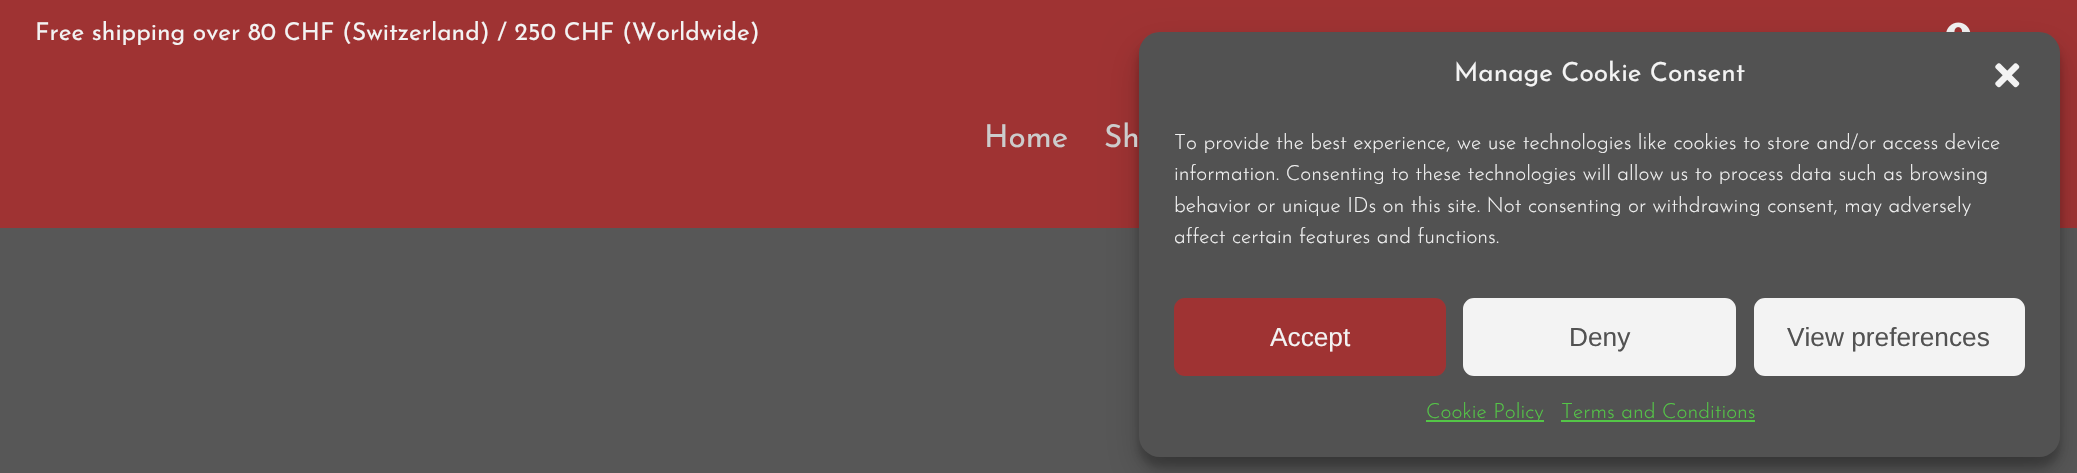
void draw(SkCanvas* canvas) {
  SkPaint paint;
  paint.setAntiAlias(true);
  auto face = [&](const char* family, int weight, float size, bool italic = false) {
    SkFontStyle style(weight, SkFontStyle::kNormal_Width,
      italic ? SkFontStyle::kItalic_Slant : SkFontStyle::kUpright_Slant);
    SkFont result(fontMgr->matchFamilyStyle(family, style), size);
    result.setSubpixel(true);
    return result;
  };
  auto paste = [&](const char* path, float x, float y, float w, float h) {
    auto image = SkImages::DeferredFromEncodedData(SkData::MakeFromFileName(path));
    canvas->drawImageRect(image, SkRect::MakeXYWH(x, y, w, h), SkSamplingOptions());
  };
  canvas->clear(0xff575757);
  paint.setColor(0xff9f3333);
  canvas->drawRect(SkRect::MakeXYWH(0, 0, 2077, 228), paint);
  paste("img/1.png", 1946, 22, 25, 10);
  paint.setColor(0x3b000000);
  paint.setMaskFilter(SkMaskFilter::MakeBlur(kNormal_SkBlurStyle, 5));
  canvas->drawRoundRect(SkRect::MakeXYWH(1139, 42, 921, 425), 21, 21, paint);
  paint.setMaskFilter(nullptr);
  paint.setColor(0x30000000);
  paint.setMaskFilter(SkMaskFilter::MakeBlur(kNormal_SkBlurStyle, 17.5f));
  canvas->drawRoundRect(SkRect::MakeXYWH(1139, 49, 921, 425), 21, 21, paint);
  paint.setMaskFilter(nullptr);
  paint.setColor(0xff525252);
  canvas->drawRoundRect(SkRect::MakeXYWH(1139, 32, 921, 425), 21, 21, paint);
  paste("img/2.png", 1995, 63, 25, 25);
  paint.setColor(0xff9f3333);
  canvas->drawRoundRect(SkRect::MakeXYWH(1175, 299, 270, 76), 10, 10, paint);
  paint.setStroke(true);
  paint.setStrokeWidth(2);
  canvas->drawRoundRect(SkRect::MakeXYWH(1175, 299, 270, 76), 10, 10, paint);
  paint.setStroke(false);
  paint.setColor(0xfff3f3f3);
  canvas->drawRoundRect(SkRect::MakeXYWH(1464, 299, 271, 76), 10, 10, paint);
  paint.setStroke(true);
  canvas->drawRoundRect(SkRect::MakeXYWH(1464, 299, 271, 76), 10, 10, paint);
  paint.setStroke(false);
  canvas->drawRoundRect(SkRect::MakeXYWH(1755, 299, 269, 76), 10, 10, paint);
  paint.setStroke(true);
  canvas->drawRoundRect(SkRect::MakeXYWH(1755, 299, 269, 76), 10, 10, paint);
  paint.setStroke(false);
  paint.setColor(0xff54c647);
  canvas->drawRect(SkRect::MakeXYWH(1426, 420, 118, 2), paint);
  canvas->drawRect(SkRect::MakeXYWH(1561, 420, 194, 2), paint);
  auto f0 = face("Josefin Sans", 400, 24.5f);
  paint.setColor(0xfff3f3f3);
  canvas->drawString("Free shipping over 80 CHF (Switzerland) / 250 CHF (Worldwide)", 35, 40, f0, paint);
  auto f1 = face("Josefin Sans", 400, 31.5f);
  paint.setColor(0xffcccccc);
  canvas->drawString("Home", 984, 147, f1, paint);
  canvas->drawString("Sh", 1104, 147, f1, paint);
  auto f2 = face("Josefin Sans", 400, 26.25f);
  paint.setColor(0xfff3f3f3);
  canvas->drawString("Manage Cookie Consent", 1454, 81, f2, paint);
  auto f3 = face("Josefin Sans", 300, 21);
  {
    const struct { const char* s; float x, y; } items[] = {
      {"To provide the best experience, we use technologies like cookies to store and/or access device", 1174, 149},
      {"information. Consenting to these technologies will allow us to process data such as browsing", 1174, 180},
      {"behavior or unique IDs on this site. Not consenting or withdrawing consent, may adversely", 1174, 212},
      {"affect certain features and functions.", 1174, 243},
    };
    for (auto [s, x, y] : items) {
      canvas->drawString(s, x, y, f3, paint);
    }
  }
  auto f4 = face("Liberation Sans", 400, 26.25f);
  canvas->drawString("Accept", 1270, 346, f4, paint);
  paint.setColor(0xff525252);
  canvas->drawString("Deny", 1569, 346, f4, paint);
  canvas->drawString("View preferences", 1787, 346, f4, paint);
  paint.setColor(0xff54c647);
  canvas->drawString("Cookie Policy", 1426, 418, f3, paint);
  canvas->drawString("Terms and Conditions", 1561, 418, f3, paint);
}
